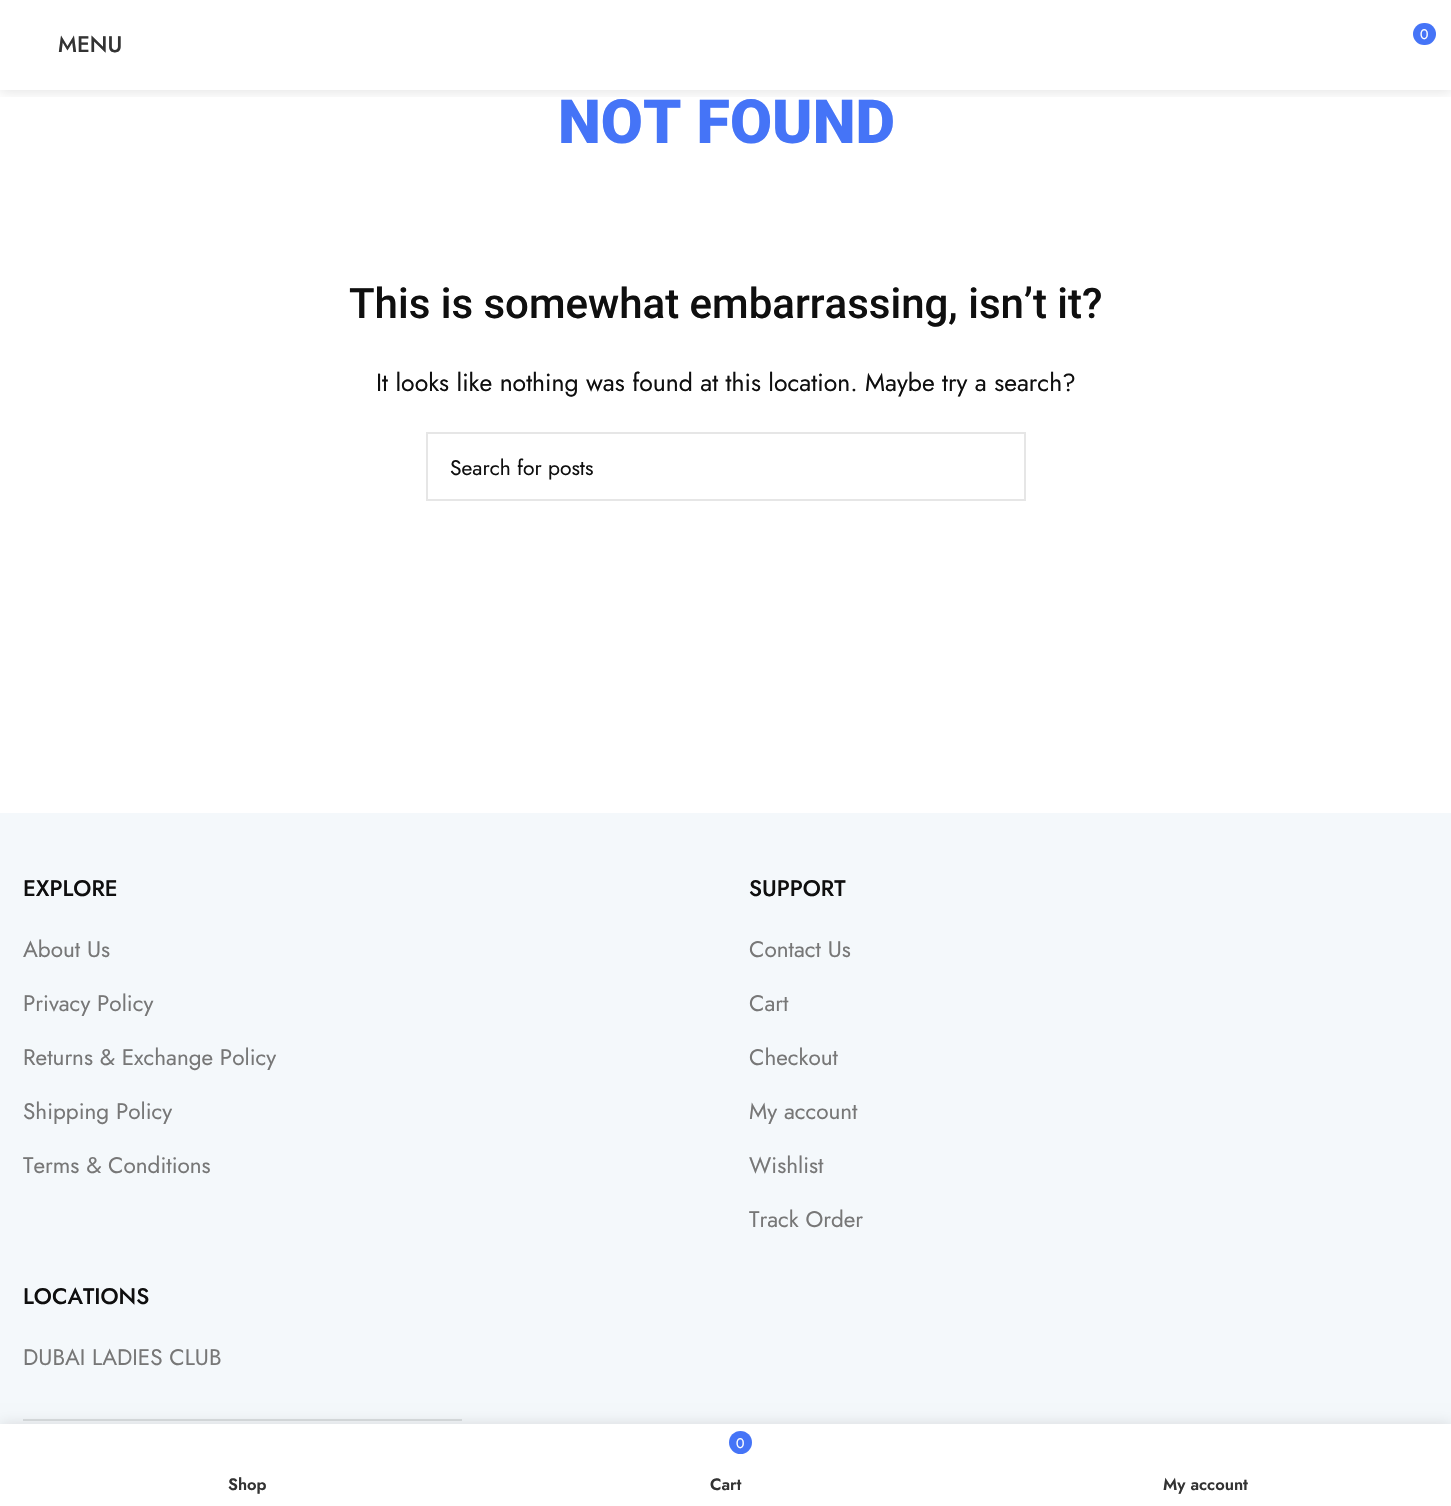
void draw(SkCanvas* canvas) {
  SkPaint paint;
  paint.setAntiAlias(true);
  auto face = [&](const char* family, int weight, float size, bool italic = false) {
    SkFontStyle style(weight, SkFontStyle::kNormal_Width,
      italic ? SkFontStyle::kItalic_Slant : SkFontStyle::kUpright_Slant);
    SkFont result(fontMgr->matchFamilyStyle(family, style), size);
    result.setSubpixel(true);
    return result;
  };
  canvas->clear(0xffffffff);
  canvas->save();
  canvas->clipRect(SkRect::MakeXYWH(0, 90, 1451, 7));
  paint.setColor(0x1a000000);
  paint.setMaskFilter(SkMaskFilter::MakeBlur(kNormal_SkBlurStyle, 6));
  canvas->drawRect(SkRect::MakeXYWH(0, 2, 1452, 90), paint);
  paint.setMaskFilter(nullptr);
  canvas->restore();
  paint.setColor(0xff4574f7);
  canvas->drawRoundRect(SkRect::MakeXYWH(1413, 23, 23, 22), 11, 11, paint);
  paint.setStroke(true);
  paint.setStrokeWidth(2);
  paint.setColor(0xffe6e6e6);
  canvas->drawRect(SkRect::MakeXYWH(427, 433, 598, 67), paint);
  paint.setStroke(false);
  paint.setColor(0xfff4f8fb);
  canvas->drawRect(SkRect::MakeXYWH(0, 813, 1451, 611), paint);
  paint.setColor(0xffdadee0);
  canvas->drawRect(SkRect::MakeXYWH(23, 1419, 439, 2), paint);
  paint.setColor(0x1f000000);
  paint.setMaskFilter(SkMaskFilter::MakeBlur(kNormal_SkBlurStyle, 7));
  canvas->drawRect(SkRect::MakeXYWH(0, 1424, 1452, 82), paint);
  paint.setMaskFilter(nullptr);
  paint.setColor(0xffffffff);
  canvas->drawRect(SkRect::MakeXYWH(0, 1424, 1451, 82), paint);
  paint.setColor(0xff4574f7);
  canvas->drawCircle(740.5f, 1442.5f, 11.5f, paint);
  auto f0 = face("Jost", 500, 22.5f);
  paint.setColor(0xff333333);
  canvas->drawString("MENU", 58, 52, f0, paint);
  auto f1 = face("Jost", 400, 14);
  paint.setColor(0xffffffff);
  canvas->drawString("0", 1420, 39, f1, paint);
  auto f2 = face("Roboto", 900, 61);
  paint.setColor(0xff4574f7);
  canvas->drawString("NOT FOUND", 558, 143, f2, paint);
  auto f3 = face("Roboto", 500, 42);
  paint.setColor(0xff0f0f0f);
  canvas->drawString("This is somewhat embarrassing, isn’t it?", 349, 318, f3, paint);
  auto f4 = face("Jost", 400, 24.75f);
  canvas->drawString("It looks like nothing was found at this location. Maybe try a search?", 376, 391, f4, paint);
  auto f5 = face("Jost", 400, 21);
  canvas->drawString("Search for posts", 450, 475, f5, paint);
  canvas->drawString("EXPLORE", 23, 896, f0, paint);
  auto f6 = face("Jost", 400, 22.5f);
  paint.setColor(0xff777777);
  {
    const struct { const char* s; float x, y; } items[] = {
      {"About Us", 23, 957},
      {"Privacy Policy", 23, 1011},
      {"Returns & Exchange Policy", 23, 1065},
      {"Shipping Policy", 23, 1119},
      {"Terms & Conditions", 23, 1173},
    };
    for (auto [s, x, y] : items) {
      canvas->drawString(s, x, y, f6, paint);
    }
  }
  paint.setColor(0xff0f0f0f);
  canvas->drawString("SUPPORT", 749, 896, f0, paint);
  paint.setColor(0xff777777);
  {
    const struct { const char* s; float x, y; } items[] = {
      {"Contact Us", 749, 957},
      {"Cart", 749, 1011},
      {"Checkout", 749, 1065},
      {"My account", 749, 1119},
      {"Wishlist", 749, 1173},
      {"Track Order", 749, 1227},
    };
    for (auto [s, x, y] : items) {
      canvas->drawString(s, x, y, f6, paint);
    }
  }
  paint.setColor(0xff0f0f0f);
  canvas->drawString("LOCATIONS", 23, 1304, f0, paint);
  paint.setColor(0xff777777);
  canvas->drawString("DUBAI LADIES CLUB", 23, 1365, f6, paint);
  auto f7 = face("Jost", 600, 16.5f);
  paint.setColor(0xff333333);
  canvas->drawString("Shop", 228, 1490, f7, paint);
  paint.setColor(0xffffffff);
  canvas->drawString("0", 736, 1448, f1, paint);
  paint.setColor(0xff333333);
  canvas->drawString("Cart", 710, 1490, f7, paint);
  canvas->drawString("My account", 1163, 1490, f7, paint);
}
